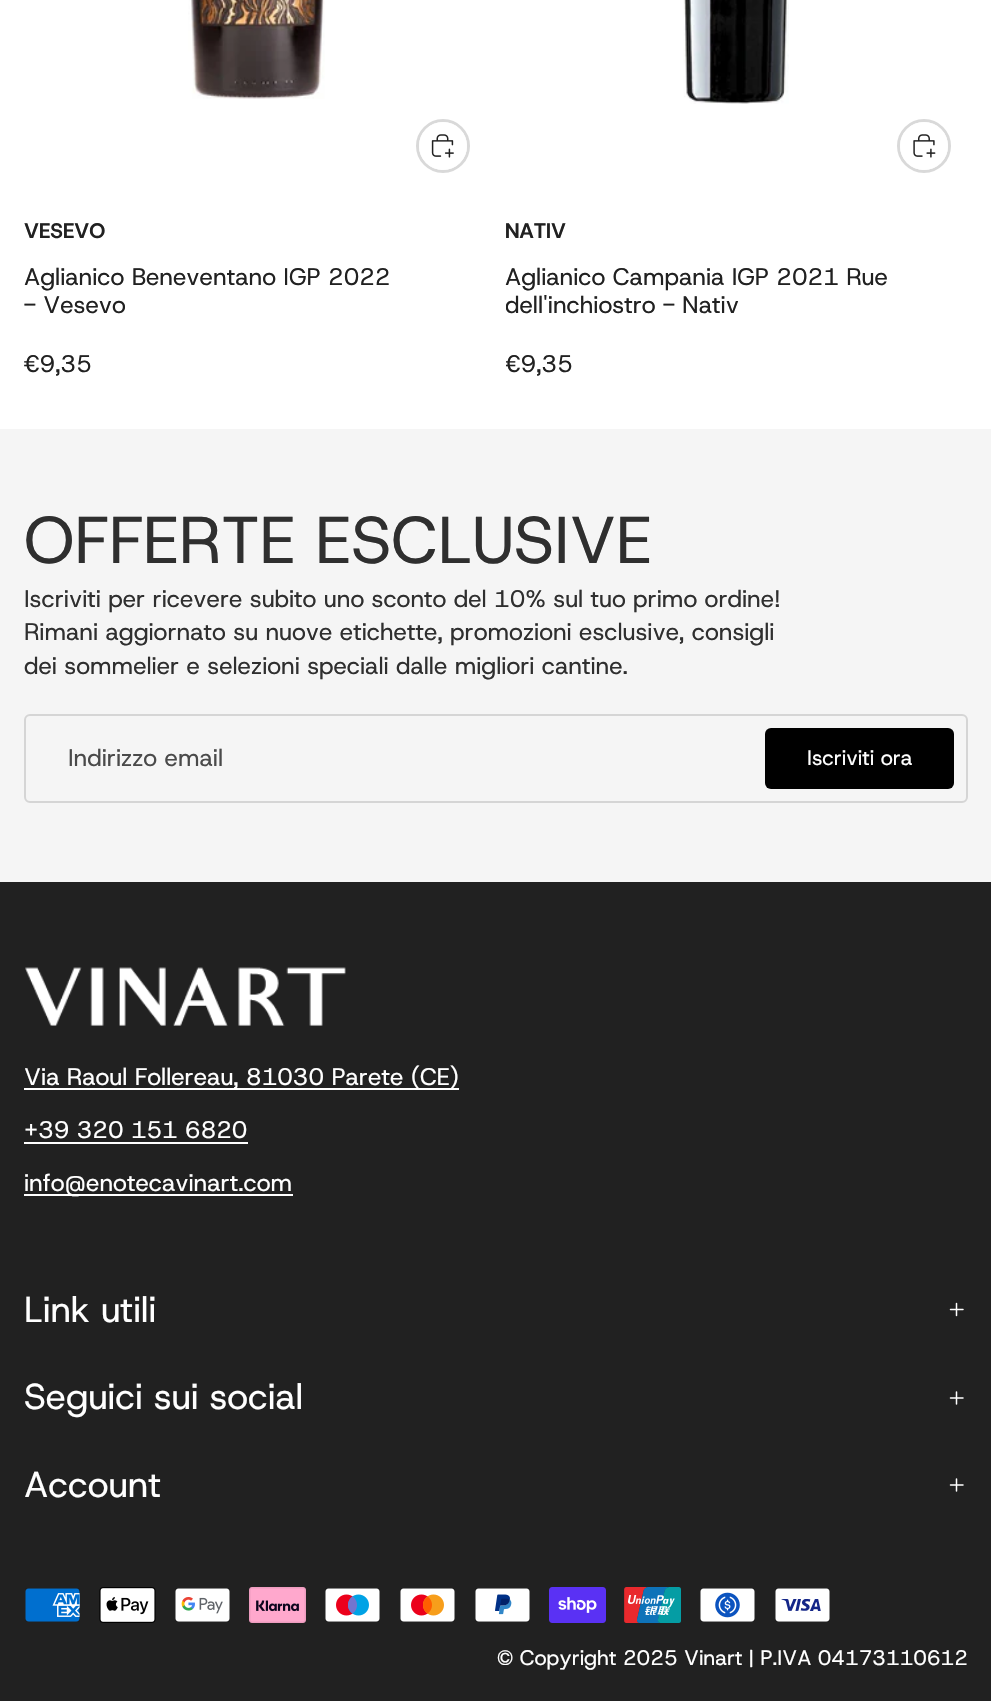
void draw(SkCanvas* canvas) {
  SkPaint paint;
  paint.setAntiAlias(true);
  auto face = [&](const char* family, int weight, float size, bool italic = false) {
    SkFontStyle style(weight, SkFontStyle::kNormal_Width,
      italic ? SkFontStyle::kItalic_Slant : SkFontStyle::kUpright_Slant);
    SkFont result(fontMgr->matchFamilyStyle(family, style), size);
    result.setSubpixel(true);
    return result;
  };
  auto paste = [&](const char* path, float x, float y, float w, float h) {
    auto image = SkImages::DeferredFromEncodedData(SkData::MakeFromFileName(path));
    canvas->drawImageRect(image, SkRect::MakeXYWH(x, y, w, h), SkSamplingOptions());
  };
  auto shape = [&](const char* data, bool evenOdd = false) {
    SkPath result = *SkParsePath::FromSVGString(data);
    if (evenOdd) result.setFillType(SkPathFillType::kEvenOdd);
    return result;
  };
  canvas->clear(0xffffffff);
  paste("img/1.png", 188, 0, 137, 99);
  paint.setStroke(true);
  paint.setStrokeWidth(3);
  paint.setColor(0xffd9d9d9);
  canvas->drawCircle(443, 146, 25.5f, paint);
  paint.setStroke(false);
  paint.setColor(0xffffffff);
  canvas->drawCircle(443, 146, 24, paint);
  paste("img/2.png", 431, 134, 23, 24);
  paste("img/3.png", 683, 0, 106, 104);
  paint.setStroke(true);
  paint.setColor(0xffd9d9d9);
  canvas->drawCircle(924, 146, 25.5f, paint);
  paint.setStroke(false);
  paint.setColor(0xffffffff);
  canvas->drawCircle(924, 146, 24, paint);
  paste("img/4.png", 913, 134, 23, 24);
  paint.setColor(0xfff5f5f5);
  canvas->drawRect(SkRect::MakeXYWH(0, 429, 991, 453), paint);
  paint.setStroke(true);
  paint.setStrokeWidth(2);
  paint.setColor(0xffd5d5d5);
  canvas->drawRoundRect(SkRect::MakeXYWH(25, 715, 942, 87), 5, 5, paint);
  paint.setStroke(false);
  paint.setColor(0xff000000);
  canvas->drawRoundRect(SkRect::MakeXYWH(765, 728, 189, 61), 6, 6, paint);
  paint.setColor(0xff212121);
  canvas->drawRect(SkRect::MakeXYWH(0, 882, 991, 819), paint);
  paste("img/5.png", 25, 967, 321, 59);
  {
    const struct { float x, y, w, h; SkColor color; } items[] = {
      {24, 1088, 435, 2, 0xffffffff},
      {24, 1142, 224, 2, 0xffffffff},
      {24, 1194, 269, 2, 0xffffffff},
    };
    for (auto [x, y, w, h, color] : items) {
      paint.setColor(color);
      canvas->drawRect(SkRect::MakeXYWH(x, y, w, h), paint);
    }
  }
  paint.setStroke(true);
  paint.setStrokeWidth(1.5f);
  paint.setStrokeCap(SkPaint::kRound_Cap);
  canvas->drawPath(shape("M950.5 1309.5H963M956.5 1303.5V1315.5"), paint);
  canvas->drawPath(shape("M950.5 1398H963M956.5 1392V1404"), paint);
  canvas->drawPath(shape("M950.5 1485H963M956.5 1479V1491"), paint);
  paste("img/6.png", 25, 1588, 55, 34);
  paste("img/7.png", 99, 1587, 57, 36);
  paste("img/8.png", 175, 1588, 55, 34);
  paste("img/9.png", 249, 1587, 57, 36);
  paste("img/10.png", 325, 1588, 55, 34);
  paste("img/11.png", 400, 1588, 55, 34);
  paste("img/12.png", 475, 1588, 55, 34);
  paste("img/13.png", 549, 1587, 57, 36);
  paste("img/14.png", 624, 1587, 57, 36);
  paste("img/15.png", 700, 1588, 55, 34);
  paste("img/16.png", 775, 1588, 55, 34);
  auto f0 = face("Host Grotesk", 700, 21);
  paint.setStroke(false);
  paint.setColor(0xff212121);
  canvas->drawString("VESEVO", 24, 238, f0, paint);
  auto f1 = face("Host Grotesk", 400, 24);
  {
    const struct { const char* s; float x, y; } items[] = {
      {"Aglianico Beneventano IGP 2022", 24, 285},
      {"- Vesevo", 24, 313},
      {"€9,35", 24, 372},
    };
    for (auto [s, x, y] : items) {
      canvas->drawString(s, x, y, f1, paint);
    }
  }
  canvas->save();
  canvas->clipRect(SkRect::MakeXYWH(506, 0, 462, 378));
  canvas->drawString("NATIV", 505, 238, f0, paint);
  canvas->restore();
  canvas->drawString("Aglianico Campania IGP 2021 Rue", 505, 285, f1, paint);
  canvas->save();
  canvas->clipRect(SkRect::MakeXYWH(506, 0, 462, 378));
  canvas->drawString("dell'inchiostro - Nativ", 505, 313, f1, paint);
  canvas->drawString("€9,35", 505, 372, f1, paint);
  canvas->restore();
  auto f2 = face("Host Grotesk", 400, 66);
  paint.setColor(0xff2f2f2f);
  canvas->drawString("OFFERTE ESCLUSIVE", 24, 563, f2, paint);
  {
    const struct { const char* s; float x, y; } items[] = {
      {"Iscriviti per ricevere subito uno sconto del 10% sul tuo primo ordine!", 24, 607},
      {"Rimani aggiornato su nuove etichette, promozioni esclusive, consigli", 24, 640},
      {"dei sommelier e selezioni speciali dalle migliori cantine.", 24, 674},
    };
    for (auto [s, x, y] : items) {
      canvas->drawString(s, x, y, f1, paint);
    }
  }
  paint.setColor(0xff4a4a4a);
  canvas->drawString("Indirizzo email", 68, 766, f1, paint);
  auto f3 = face("Host Grotesk", 400, 21);
  paint.setColor(0xffffffff);
  canvas->drawString("Iscriviti ora", 807, 765, f3, paint);
  {
    const struct { const char* s; float x, y; } items[] = {
      {"Via Raoul Follereau, 81030 Parete (CE)", 24, 1085},
      {"+39 320 151 6820", 24, 1138},
      {"info@enotecavinart.com", 24, 1191},
    };
    for (auto [s, x, y] : items) {
      canvas->drawString(s, x, y, f1, paint);
    }
  }
  auto f4 = face("Host Grotesk", 400, 36);
  {
    const struct { const char* s; float x, y; } items[] = {
      {"Link utili", 24, 1322},
      {"Seguici sui social", 24, 1409},
      {"Account", 24, 1497},
    };
    for (auto [s, x, y] : items) {
      canvas->drawString(s, x, y, f4, paint);
    }
  }
  canvas->drawString("© Copyright 2025 Vinart | P.IVA 04173110612", 497, 1665, f3, paint);
}
